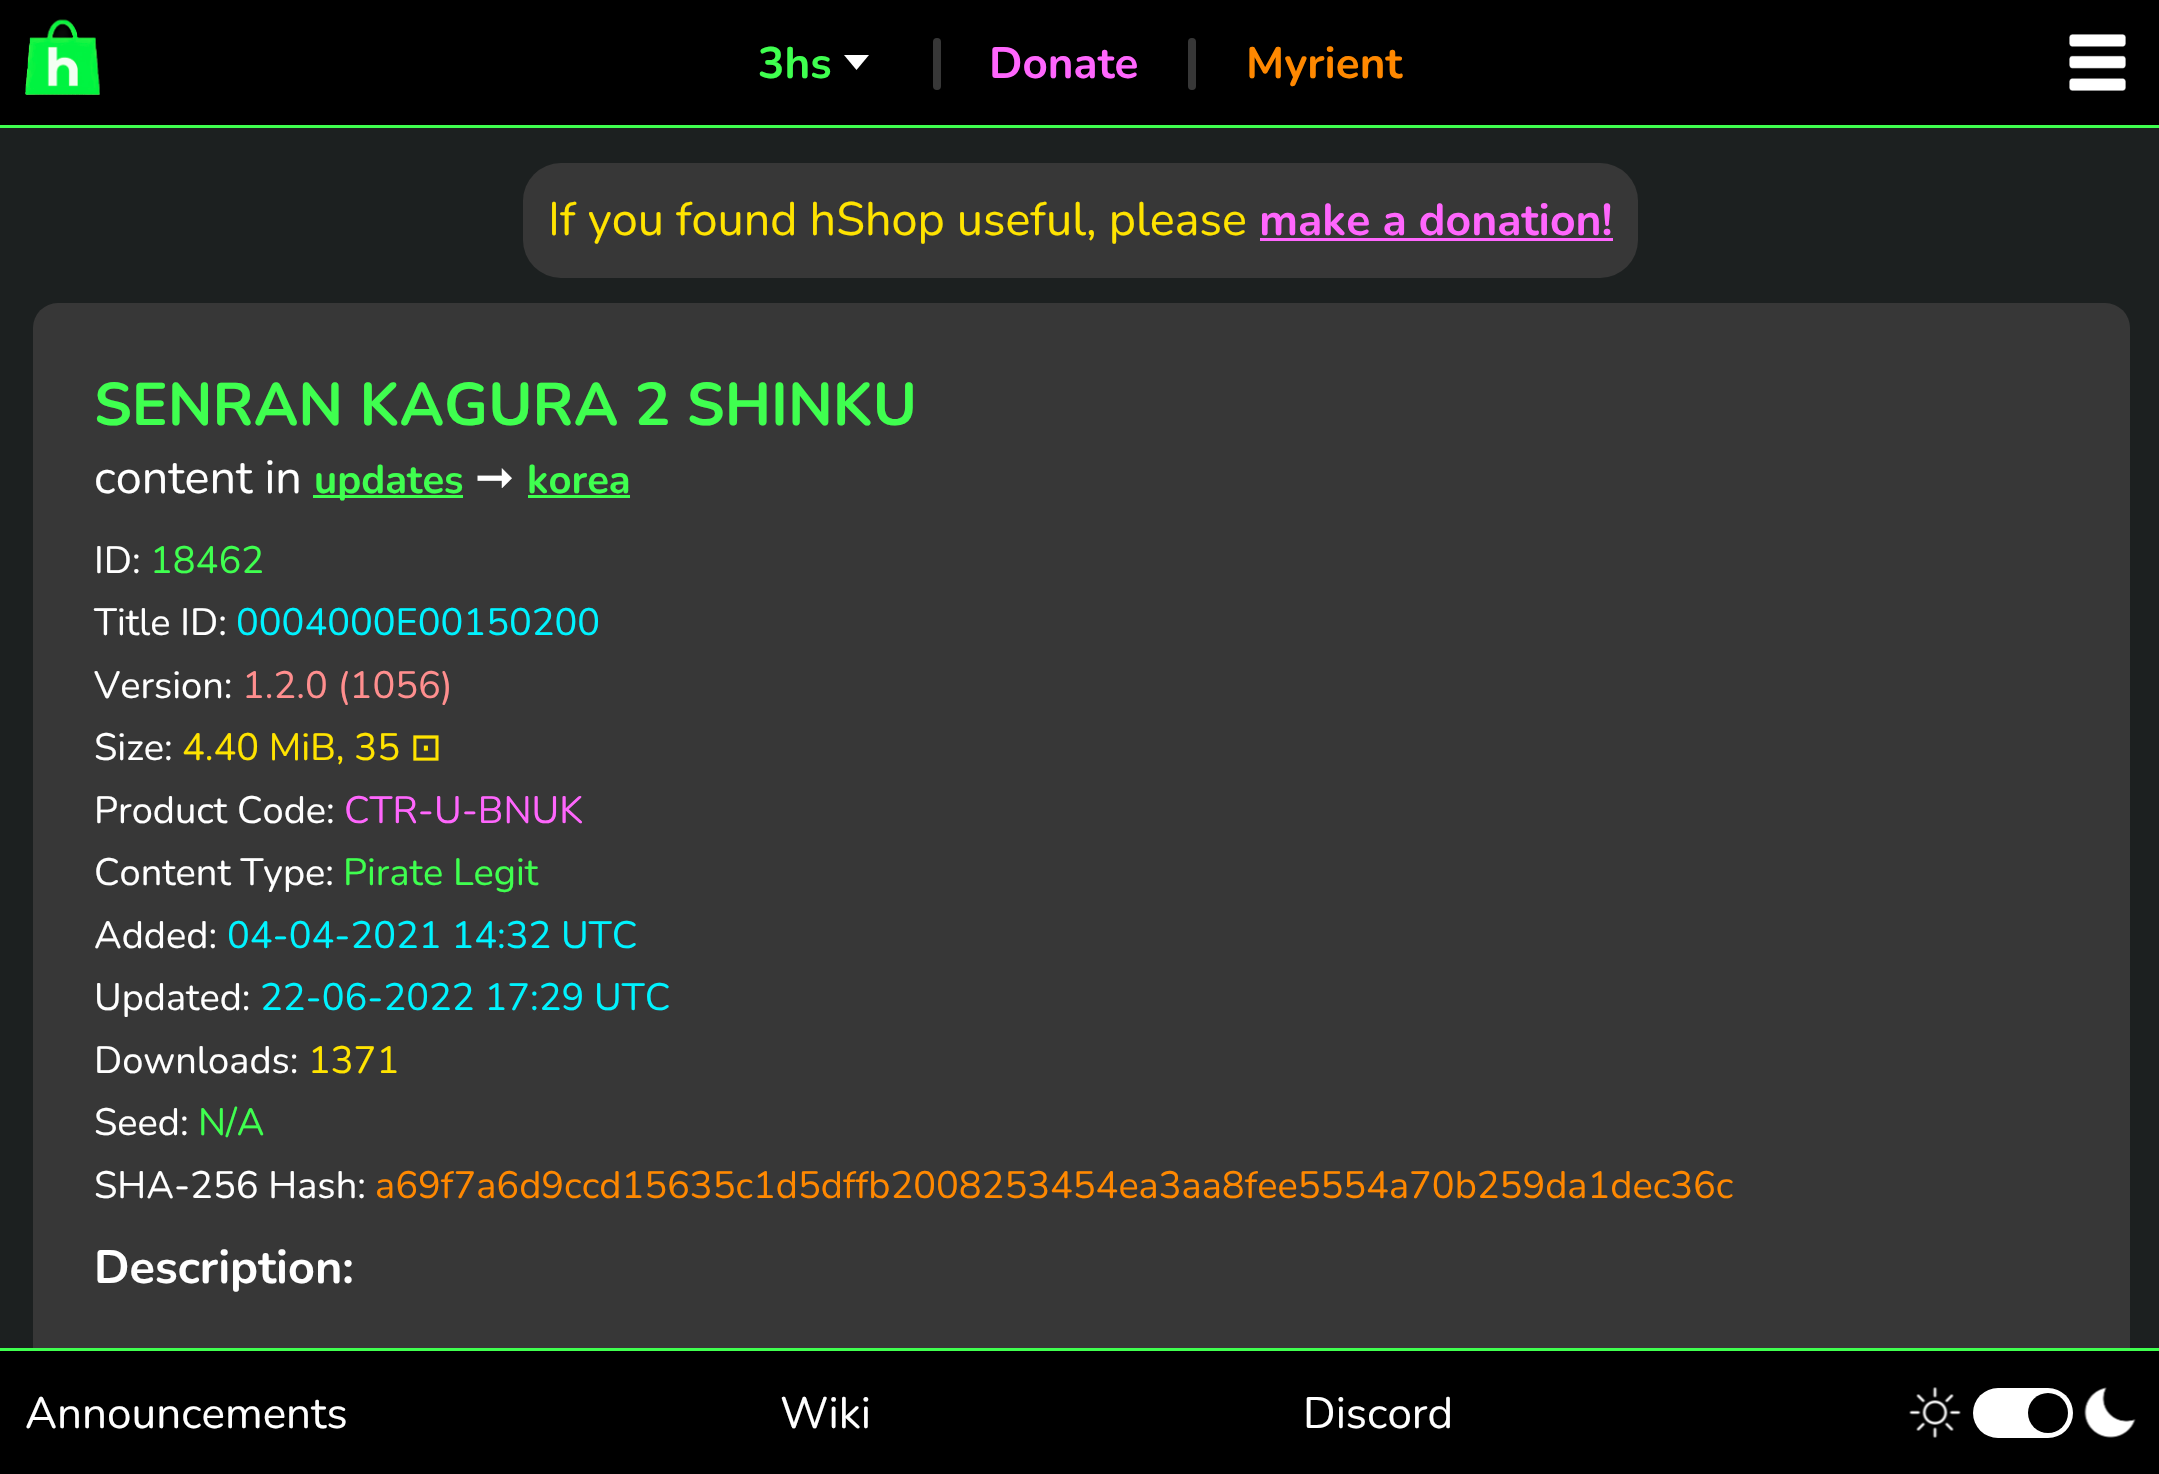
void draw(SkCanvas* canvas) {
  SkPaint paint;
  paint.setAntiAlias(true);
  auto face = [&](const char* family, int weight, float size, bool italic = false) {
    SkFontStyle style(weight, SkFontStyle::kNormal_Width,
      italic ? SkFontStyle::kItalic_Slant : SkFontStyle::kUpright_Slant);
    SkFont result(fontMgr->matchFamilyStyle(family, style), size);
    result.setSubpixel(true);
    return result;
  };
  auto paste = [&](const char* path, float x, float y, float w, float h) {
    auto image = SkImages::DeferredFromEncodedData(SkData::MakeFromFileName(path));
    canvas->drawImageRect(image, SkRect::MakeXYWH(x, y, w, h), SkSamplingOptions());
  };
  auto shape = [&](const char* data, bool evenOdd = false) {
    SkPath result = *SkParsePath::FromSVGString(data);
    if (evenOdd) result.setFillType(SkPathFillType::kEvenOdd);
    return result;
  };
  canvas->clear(0xff1c2020);
  paint.setColor(0xff000000);
  canvas->drawRect(SkRect::MakeXYWH(0, 0, 2159, 125), paint);
  paint.setColor(0xff3fff4f);
  canvas->drawRect(SkRect::MakeXYWH(0, 125, 2159, 3), paint);
  paste("img/1.png", 25, 19, 75, 76);
  paint.setColor(0xffffffff);
  canvas->drawPath(shape("M844 55H869L856.5 70Z"), paint);
  paint.setColor(0xff373737);
  canvas->drawRoundRect(SkRect::MakeXYWH(933, 38, 8, 52), 4, 4, paint);
  canvas->drawRoundRect(SkRect::MakeXYWH(1188, 38, 8, 52), 4, 4, paint);
  paste("img/2.png", 2069, 34, 57, 57);
  canvas->drawRoundRect(SkRect::MakeXYWH(523, 163, 1115, 115), 38, 38, paint);
  paint.setColor(0xffff66fd);
  canvas->drawRect(SkRect::MakeXYWH(1260, 238, 353, 3), paint);
  paint.setColor(0xff373737);
  canvas->drawRoundRect(SkRect::MakeXYWH(33, 303, 2097, 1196), 25, 25, paint);
  {
    const struct { float x, y, w, h; SkColor color; } items[] = {
      {313, 495, 150, 3, 0xff3fff4f},
      {528, 495, 102, 3, 0xff3fff4f},
      {0, 1351, 2159, 123, 0xff000000},
      {0, 1348, 2159, 3, 0xff3fff4f},
    };
    for (auto [x, y, w, h, color] : items) {
      paint.setColor(color);
      canvas->drawRect(SkRect::MakeXYWH(x, y, w, h), paint);
    }
  }
  paste("img/3.png", 1909, 1387, 52, 51);
  paint.setColor(0xffffffff);
  canvas->drawRoundRect(SkRect::MakeXYWH(1973, 1388, 100, 50), 25, 25, paint);
  paint.setColor(0xff000000);
  canvas->drawCircle(2048, 1413, 20, paint);
  paste("img/4.png", 2084, 1387, 52, 51);
  auto f0 = face("Nunito", 700, 44);
  paint.setColor(0xff3fff4f);
  canvas->drawString("3hs", 758, 78, f0, paint);
  paint.setColor(0xffff66fd);
  canvas->drawString("Donate", 989, 78, f0, paint);
  paint.setColor(0xffff8800);
  canvas->drawString("Myrient", 1246, 78, f0, paint);
  auto f1 = face("Nunito", 400, 46.75f);
  paint.setColor(0xffffe300);
  canvas->drawString("If you found hShop useful, please", 548, 235, f1, paint);
  auto f2 = face("Nunito", 700, 44.5f);
  paint.setColor(0xffff66fd);
  canvas->drawString("make a donation!", 1259, 235, f2, paint);
  auto f3 = face("Nunito", 700, 60);
  paint.setColor(0xff3fff4f);
  canvas->drawString("SENRAN KAGURA 2 SHINKU", 94, 425, f3, paint);
  paint.setColor(0xffffffff);
  canvas->drawString("content in", 94, 493, f1, paint);
  auto f4 = face("Nunito", 700, 40);
  paint.setColor(0xff3fff4f);
  canvas->drawString("updates", 314, 493, f4, paint);
  auto f5 = face("DejaVu Sans", 400, 46.75f);
  paint.setColor(0xffffffff);
  canvas->drawString("➞", 475, 493, f5, paint);
  paint.setColor(0xff3fff4f);
  canvas->drawString("korea", 527, 493, f4, paint);
  auto f6 = face("Nunito", 400, 38);
  paint.setColor(0xffffffff);
  canvas->drawString("ID:", 94, 573, f6, paint);
  paint.setColor(0xff3fff4f);
  canvas->drawString("18462", 150, 573, f6, paint);
  paint.setColor(0xffffffff);
  canvas->drawString("Title ID:", 94, 635, f6, paint);
  paint.setColor(0xff00f3ff);
  canvas->drawString("0004000E00150200", 236, 635, f6, paint);
  paint.setColor(0xffffffff);
  canvas->drawString("Version:", 94, 698, f6, paint);
  paint.setColor(0xffff8e8e);
  canvas->drawString("1.2.0 (1056)", 242, 698, f6, paint);
  paint.setColor(0xffffffff);
  canvas->drawString("Size:", 94, 760, f6, paint);
  paint.setColor(0xffffe300);
  canvas->drawString("4.40 MiB, 35", 182, 760, f6, paint);
  auto f7 = face("DejaVu Sans", 400, 38);
  canvas->drawString("⊡", 410, 760, f7, paint);
  paint.setColor(0xffffffff);
  canvas->drawString("Product Code:", 94, 823, f6, paint);
  paint.setColor(0xffff66fd);
  canvas->drawString("CTR-U-BNUK", 344, 823, f6, paint);
  paint.setColor(0xffffffff);
  canvas->drawString("Content Type:", 94, 885, f6, paint);
  paint.setColor(0xff3fff4f);
  canvas->drawString("Pirate Legit", 343, 885, f6, paint);
  paint.setColor(0xffffffff);
  canvas->drawString("Added:", 94, 948, f6, paint);
  paint.setColor(0xff00f3ff);
  canvas->drawString("04-04-2021 14:32 UTC", 227, 948, f6, paint);
  paint.setColor(0xffffffff);
  canvas->drawString("Updated:", 94, 1010, f6, paint);
  paint.setColor(0xff00f3ff);
  canvas->drawString("22-06-2022 17:29 UTC", 260, 1010, f6, paint);
  paint.setColor(0xffffffff);
  canvas->drawString("Downloads:", 94, 1073, f6, paint);
  paint.setColor(0xffffe300);
  canvas->drawString("1371", 308, 1073, f6, paint);
  paint.setColor(0xffffffff);
  canvas->drawString("Seed:", 94, 1135, f6, paint);
  paint.setColor(0xff3fff4f);
  canvas->drawString("N/A", 198, 1135, f6, paint);
  paint.setColor(0xffffffff);
  canvas->drawString("SHA-256 Hash:", 94, 1198, f6, paint);
  paint.setColor(0xffff8800);
  canvas->drawString("a69f7a6d9ccd15635c1d5dffb2008253454ea3aa8fee5554a70b259da1dec36c", 375, 1198, f6, paint);
  auto f8 = face("Nunito", 700, 46.75f);
  paint.setColor(0xffffffff);
  canvas->drawString("Description:", 94, 1283, f8, paint);
  auto f9 = face("Nunito", 400, 44);
  {
    const struct { const char* s; float x, y; } items[] = {
      {"Announcements", 25, 1428},
      {"Wiki", 780, 1428},
      {"Discord", 1303, 1428},
    };
    for (auto [s, x, y] : items) {
      canvas->drawString(s, x, y, f9, paint);
    }
  }
}
